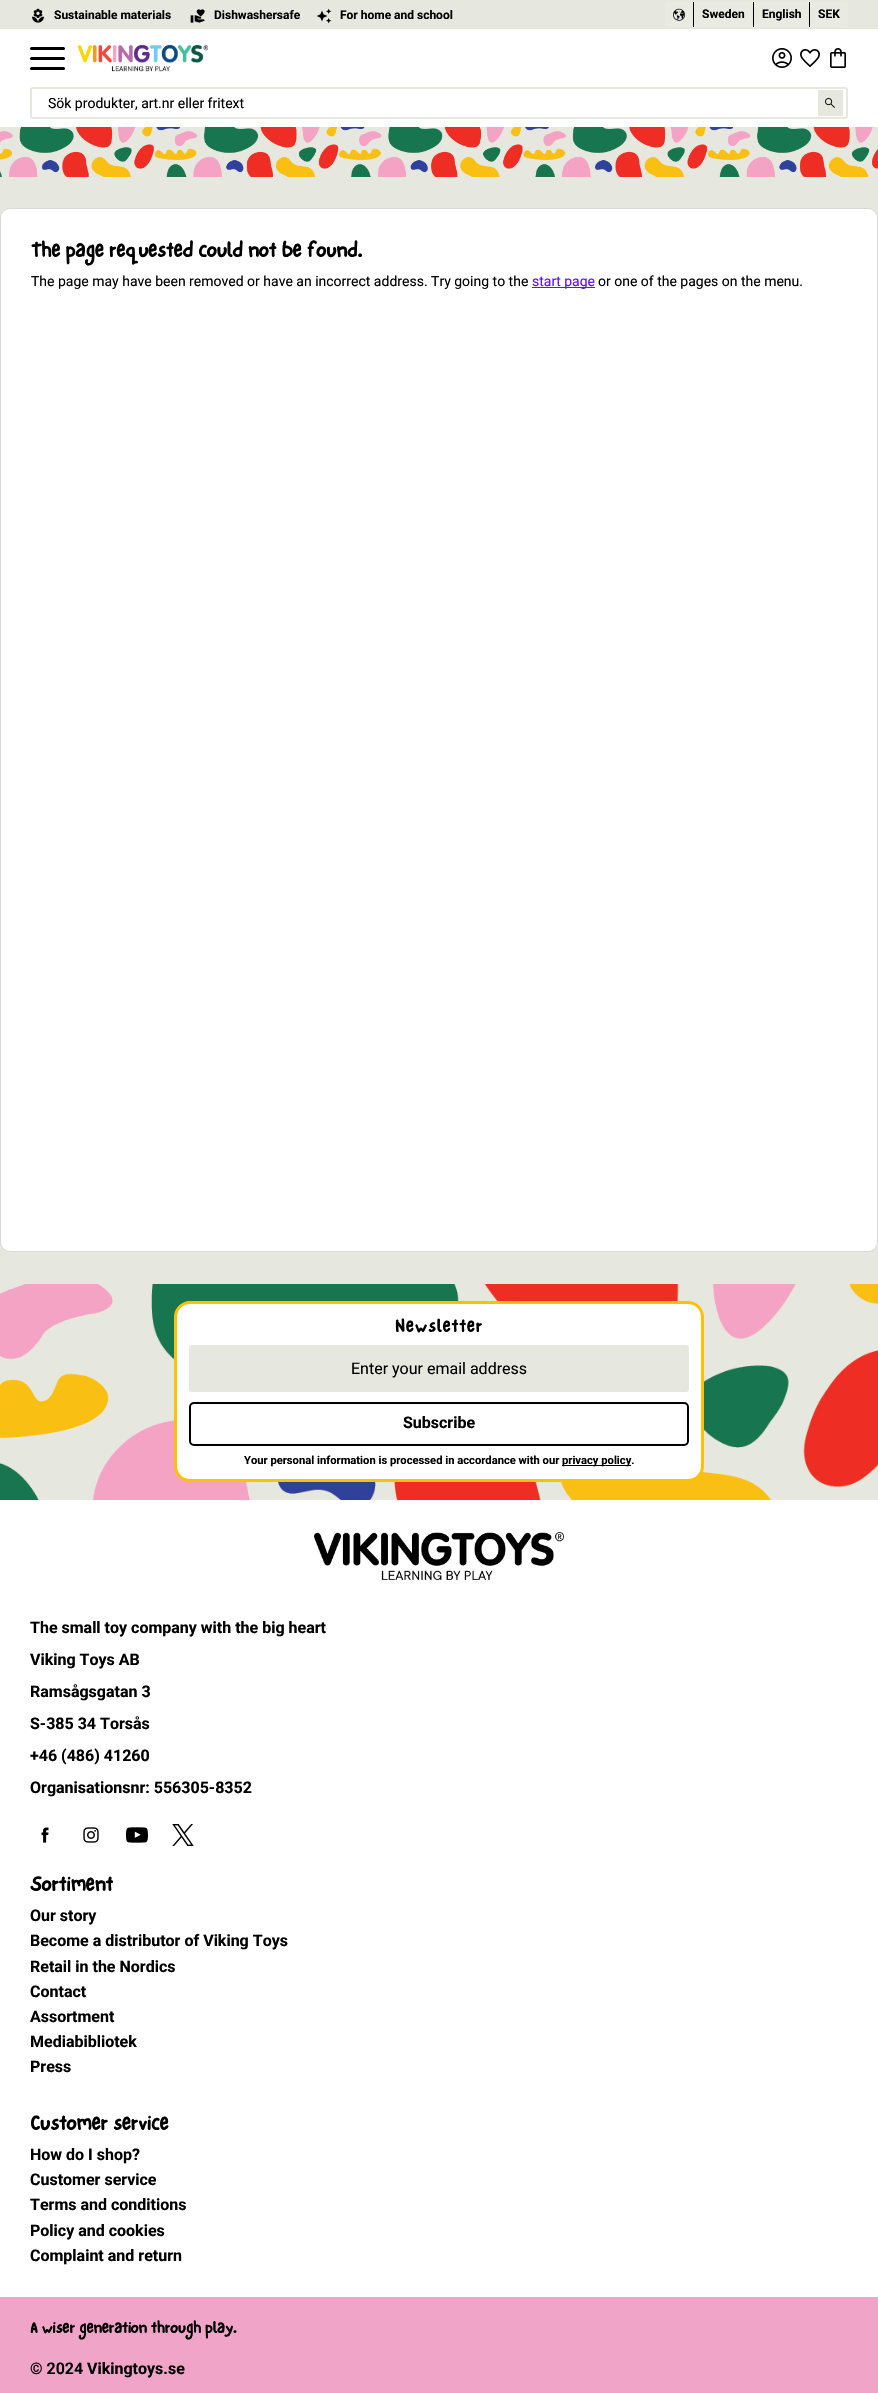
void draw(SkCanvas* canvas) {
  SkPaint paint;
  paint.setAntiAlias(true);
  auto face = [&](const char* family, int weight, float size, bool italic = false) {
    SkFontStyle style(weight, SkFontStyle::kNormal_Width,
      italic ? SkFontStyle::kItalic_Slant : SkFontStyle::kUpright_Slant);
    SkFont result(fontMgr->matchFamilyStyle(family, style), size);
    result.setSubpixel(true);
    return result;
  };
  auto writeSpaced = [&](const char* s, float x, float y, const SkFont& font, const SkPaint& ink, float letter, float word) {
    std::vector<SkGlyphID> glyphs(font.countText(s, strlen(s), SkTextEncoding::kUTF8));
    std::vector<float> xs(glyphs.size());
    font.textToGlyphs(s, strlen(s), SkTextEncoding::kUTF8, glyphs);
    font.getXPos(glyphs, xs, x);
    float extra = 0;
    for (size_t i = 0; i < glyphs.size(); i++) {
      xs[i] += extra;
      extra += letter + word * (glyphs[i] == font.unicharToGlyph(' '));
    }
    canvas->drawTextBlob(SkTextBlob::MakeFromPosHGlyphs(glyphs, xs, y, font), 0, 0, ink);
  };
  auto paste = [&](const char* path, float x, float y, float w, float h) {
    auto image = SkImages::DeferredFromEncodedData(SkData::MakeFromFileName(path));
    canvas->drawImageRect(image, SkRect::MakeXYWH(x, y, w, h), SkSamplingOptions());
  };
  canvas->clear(0xffe6e8df);
  paint.setColor(0xffffffff);
  canvas->drawRect(SkRect::MakeXYWH(0, 29, 878, 98), paint);
  paint.setColor(0xff000000);
  canvas->drawRoundRect(SkRect::MakeXYWH(30, 57, 35, 3), 1.5f, 1.5f, paint);
  canvas->drawRoundRect(SkRect::MakeXYWH(30, 47, 35, 3), 1.5f, 1.5f, paint);
  canvas->drawRoundRect(SkRect::MakeXYWH(30, 67, 35, 3), 1.5f, 1.5f, paint);
  paste("img/1.png", 32, 8, 12, 15);
  paste("img/2.png", 190, 9, 15, 14);
  paste("img/3.png", 316, 8, 16, 16);
  paint.setColor(0xffe9eae2);
  canvas->drawRoundRect(SkRect::MakeXYWH(665, 2, 183, 25), 3, 3, paint);
  paste("img/4.png", 673, 8, 12, 13);
  {
    const struct { float x, y, w, h; SkColor color; } items[] = {
      {693, 2, 1, 25, 0xff000000},
      {753, 2, 1, 25, 0xff000000},
      {809, 2, 1, 25, 0xff000000},
    };
    for (auto [x, y, w, h, color] : items) {
      paint.setColor(color);
      canvas->drawRect(SkRect::MakeXYWH(x, y, w, h), paint);
    }
  }
  paste("img/5.png", 78, 45, 130, 27);
  paste("img/6.png", 772, 48, 20, 20);
  paste("img/7.png", 800, 49, 20, 18);
  paste("img/8.png", 830, 48, 16, 20);
  paint.setStroke(true);
  paint.setStrokeWidth(2);
  paint.setColor(0xffe6e8df);
  canvas->drawRoundRect(SkRect::MakeXYWH(31, 88, 816, 30), 2, 2, paint);
  paint.setStroke(false);
  canvas->drawRect(SkRect::MakeXYWH(818, 90, 25, 26), paint);
  paste("img/9.png", 825, 98, 10, 10);
  paste("img/10.png", 0, 127, 878, 50);
  paint.setColor(0xffffffff);
  canvas->drawRoundRect(SkRect::MakeXYWH(0.5f, 208.5f, 877, 1043), 9.5f, 9.5f, paint);
  paint.setStroke(true);
  paint.setStrokeWidth(1);
  paint.setColor(0xffd9d9d9);
  canvas->drawRoundRect(SkRect::MakeXYWH(0.5f, 208.5f, 877, 1043), 9.5f, 9.5f, paint);
  paint.setStroke(false);
  paint.setColor(0xff6610f2);
  canvas->drawRect(SkRect::MakeXYWH(532, 287, 63, 1), paint);
  paint.setColor(0xffffffff);
  canvas->drawRect(SkRect::MakeXYWH(0, 1500, 878, 797), paint);
  paste("img/11.png", 0, 1284, 878, 216);
  canvas->drawRoundRect(SkRect::MakeXYWH(175.5f, 1302.5f, 527, 178), 14.5f, 14.5f, paint);
  paint.setStroke(true);
  paint.setStrokeWidth(3);
  paint.setColor(0xffffc107);
  canvas->drawRoundRect(SkRect::MakeXYWH(175.5f, 1302.5f, 527, 178), 14.5f, 14.5f, paint);
  paint.setStroke(false);
  paint.setColor(0xffe6e8df);
  canvas->drawRoundRect(SkRect::MakeXYWH(189, 1345, 500, 47), 3, 3, paint);
  paint.setStroke(true);
  paint.setStrokeWidth(2);
  paint.setColor(0xff000000);
  canvas->drawRoundRect(SkRect::MakeXYWH(190, 1403, 498, 42), 4, 4, paint);
  paint.setStroke(false);
  canvas->drawRect(SkRect::MakeXYWH(562, 1465, 69, 1), paint);
  paste("img/12.png", 314, 1532, 250, 48);
  paste("img/13.png", 41, 1827, 8, 16);
  paste("img/14.png", 83, 1827, 16, 16);
  paste("img/15.png", 126, 1827, 22, 16);
  paste("img/16.png", 172, 1824, 22, 22);
  paint.setColor(0xffefa4c8);
  canvas->drawRect(SkRect::MakeXYWH(0, 2297, 878, 96), paint);
  auto f0 = face("Roboto", 700, 12);
  paint.setColor(0xff000000);
  {
    const struct { const char* s; float x, y; } items[] = {
      {"Sustainable materials", 54, 19},
      {"Dishwashersafe", 214, 19},
      {"For home and school", 340, 19},
      {"Sweden", 702, 18},
      {"English", 762, 18},
      {"SEK", 818, 18},
    };
    for (auto [s, x, y] : items) {
      canvas->drawString(s, x, y, f0, paint);
    }
  }
  auto f1 = face("Roboto", 400, 14);
  canvas->drawString("Sök produkter, art.nr eller fritext", 48, 108, f1, paint);
  auto f2 = face("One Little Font", 700, 20.75f);
  canvas->drawString("The page requested could not be found.", 31, 257, f2, paint);
  canvas->drawString("The page may have been removed or have an incorrect address. Try going to the", 31, 286, f1, paint);
  paint.setColor(0xff6610f2);
  canvas->drawString("start page", 532, 286, f1, paint);
  paint.setColor(0xff000000);
  canvas->drawString("or one of the pages on the menu.", 598, 286, f1, paint);
  auto f3 = face("One Little Font", 700, 18);
  writeSpaced("Newsletter", 395, 1332, f3, paint, 1, 0);
  auto f4 = face("Roboto", 400, 16);
  canvas->drawString("Enter your email address", 351, 1374, f4, paint);
  auto f5 = face("Roboto", 700, 16);
  canvas->drawString("Subscribe", 403, 1428, f5, paint);
  auto f6 = face("Roboto", 700, 11.2f);
  canvas->drawString("Your personal information is processed in accordance with our", 244, 1464, f6, paint);
  canvas->drawString("privacy policy.", 562, 1464, f6, paint);
  {
    const struct { const char* s; float x, y; } items[] = {
      {"The small toy company with the big heart", 30, 1633},
      {"Viking Toys AB", 30, 1665},
      {"Ramsågsgatan 3", 30, 1697},
      {"S-385 34 Torsås", 30, 1729},
      {"+46 (486) 41260", 30, 1761},
      {"Organisationsnr: 556305-8352", 30, 1793},
    };
    for (auto [s, x, y] : items) {
      canvas->drawString(s, x, y, f5, paint);
    }
  }
  canvas->drawString("Sortiment", 30, 1891, f2, paint);
  {
    const struct { const char* s; float x, y; } items[] = {
      {"Our story", 30, 1921},
      {"Become a distributor of Viking Toys", 30, 1946},
      {"Retail in the Nordics", 30, 1972},
      {"Contact", 30, 1997},
      {"Assortment", 30, 2022},
      {"Mediabibliotek", 30, 2047},
      {"Press", 30, 2072},
    };
    for (auto [s, x, y] : items) {
      canvas->drawString(s, x, y, f5, paint);
    }
  }
  canvas->drawString("Customer service", 30, 2130, f2, paint);
  {
    const struct { const char* s; float x, y; } items[] = {
      {"How do I shop?", 30, 2160},
      {"Customer service", 30, 2185},
      {"Terms and conditions", 30, 2210},
      {"Policy and cookies", 30, 2236},
      {"Complaint and return", 30, 2261},
    };
    for (auto [s, x, y] : items) {
      canvas->drawString(s, x, y, f5, paint);
    }
  }
  auto f7 = face("One Little Font", 700, 16);
  canvas->drawString("A wiser generation through play.", 30, 2333, f7, paint);
  auto f8 = face("Roboto", 600, 16);
  canvas->drawString("© 2024", 30, 2374, f8, paint);
  canvas->drawString("Vikingtoys.se", 87, 2374, f5, paint);
}
